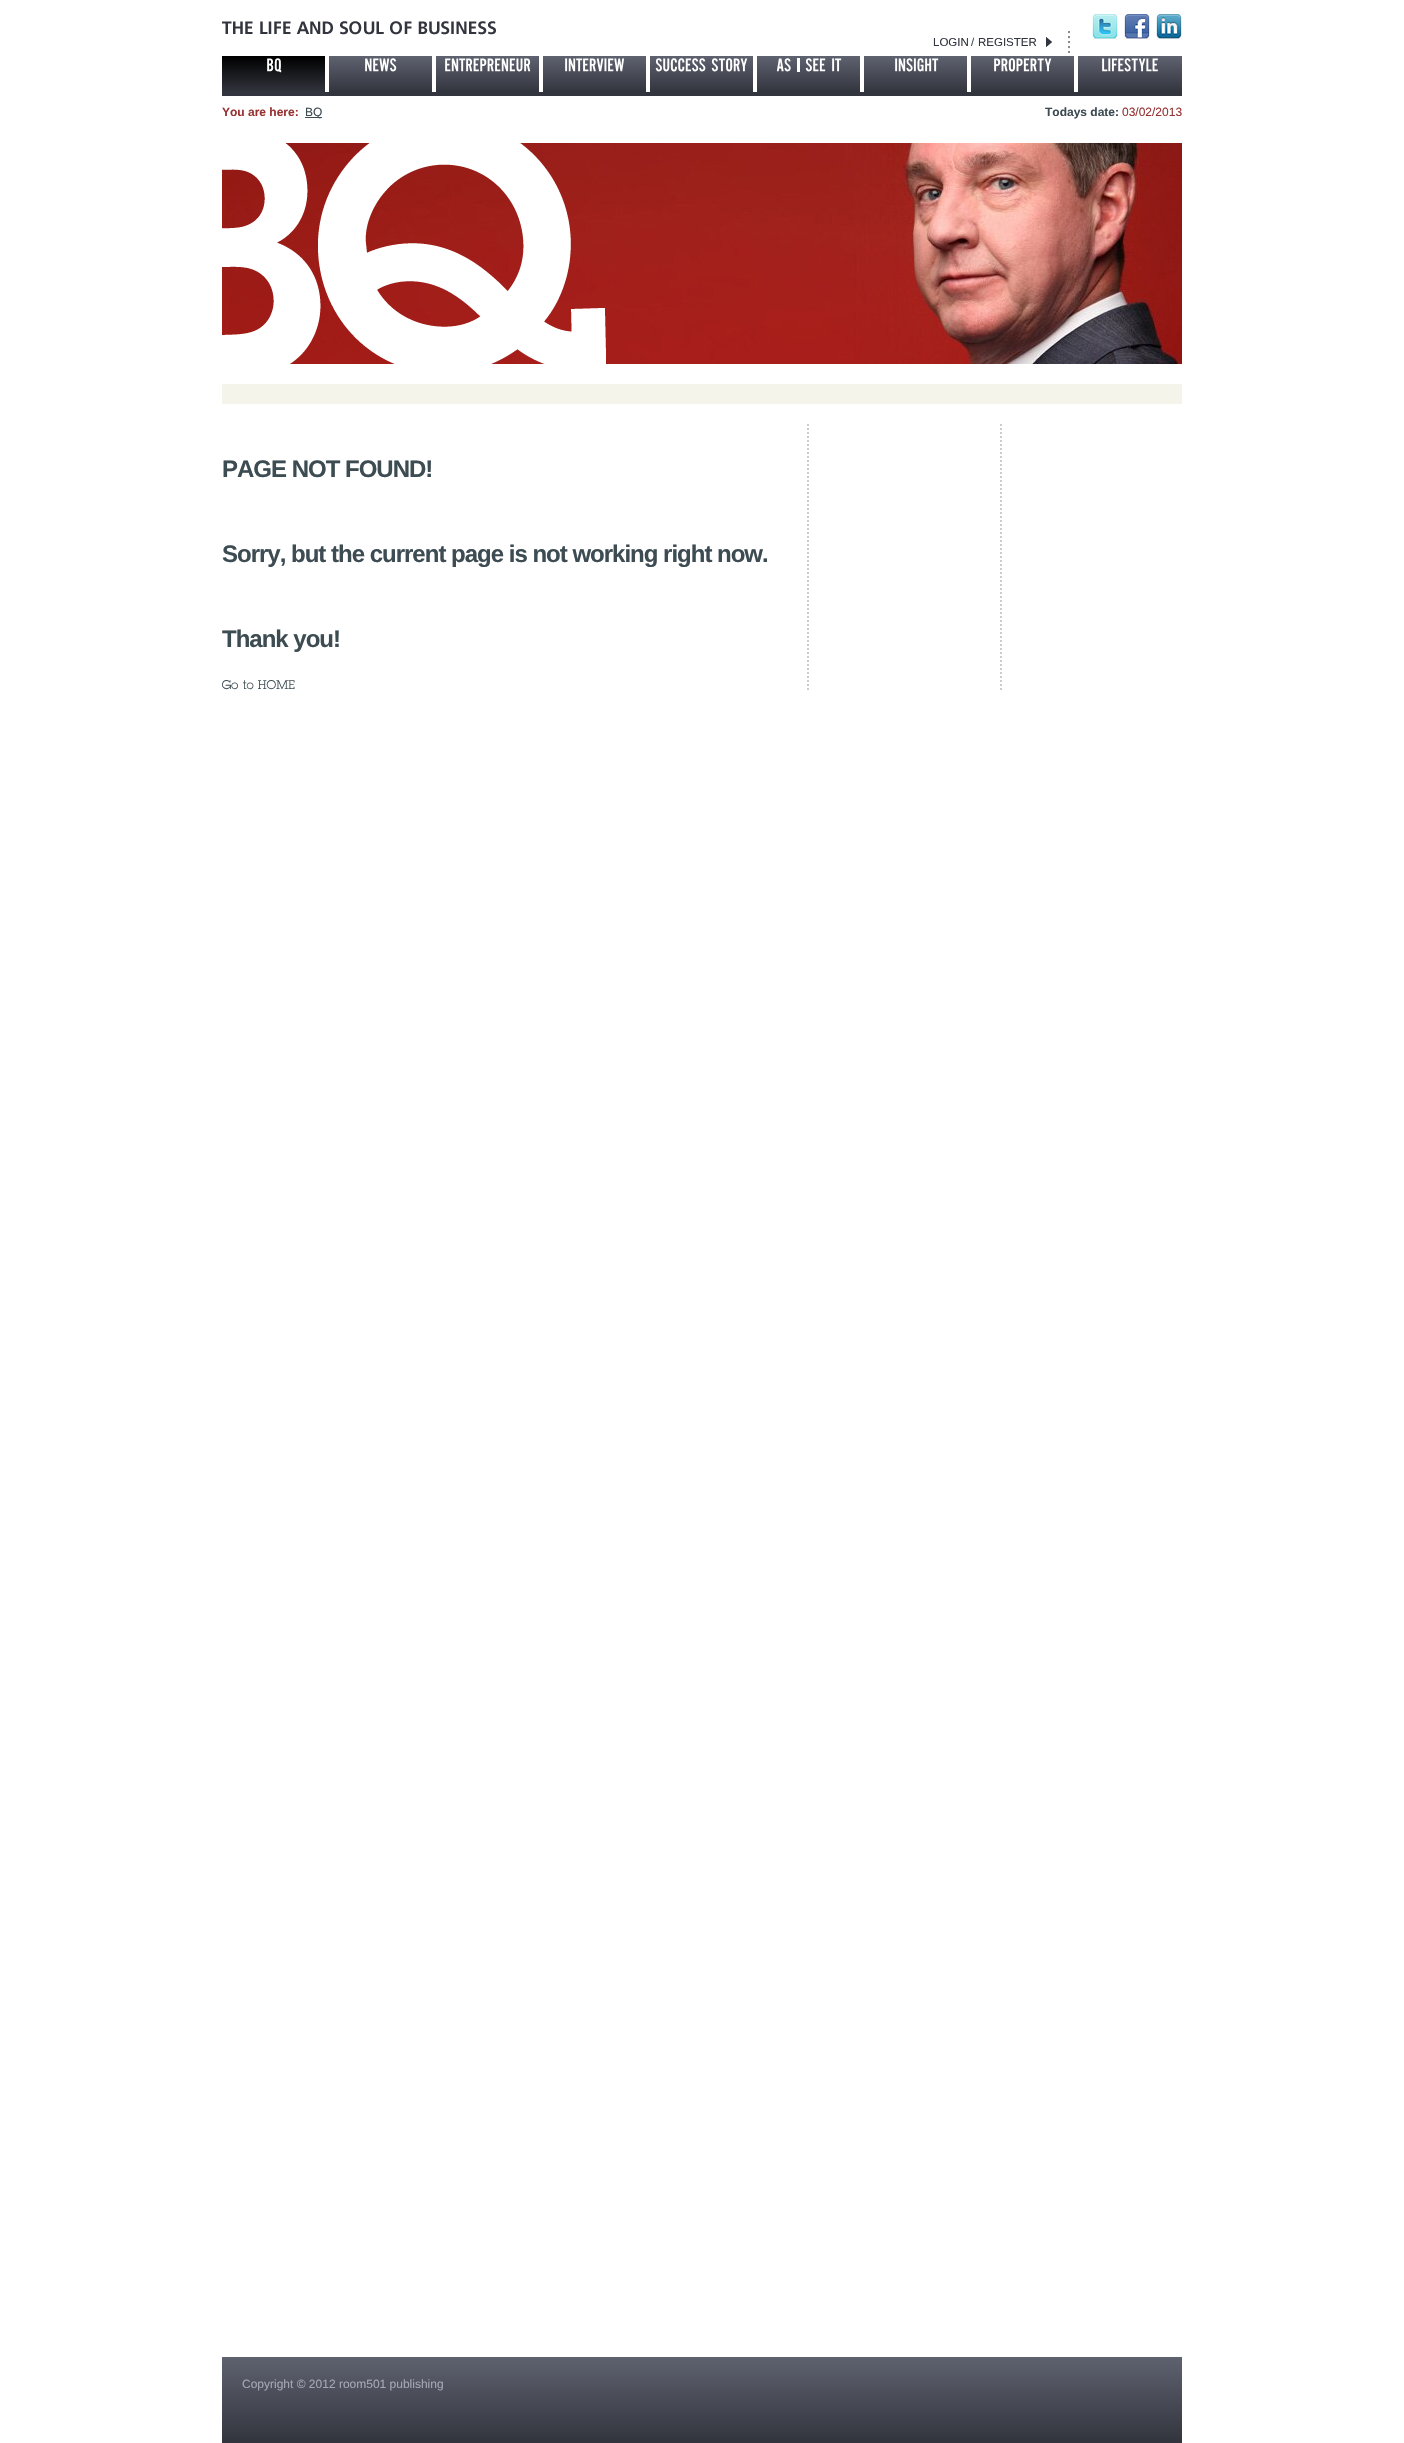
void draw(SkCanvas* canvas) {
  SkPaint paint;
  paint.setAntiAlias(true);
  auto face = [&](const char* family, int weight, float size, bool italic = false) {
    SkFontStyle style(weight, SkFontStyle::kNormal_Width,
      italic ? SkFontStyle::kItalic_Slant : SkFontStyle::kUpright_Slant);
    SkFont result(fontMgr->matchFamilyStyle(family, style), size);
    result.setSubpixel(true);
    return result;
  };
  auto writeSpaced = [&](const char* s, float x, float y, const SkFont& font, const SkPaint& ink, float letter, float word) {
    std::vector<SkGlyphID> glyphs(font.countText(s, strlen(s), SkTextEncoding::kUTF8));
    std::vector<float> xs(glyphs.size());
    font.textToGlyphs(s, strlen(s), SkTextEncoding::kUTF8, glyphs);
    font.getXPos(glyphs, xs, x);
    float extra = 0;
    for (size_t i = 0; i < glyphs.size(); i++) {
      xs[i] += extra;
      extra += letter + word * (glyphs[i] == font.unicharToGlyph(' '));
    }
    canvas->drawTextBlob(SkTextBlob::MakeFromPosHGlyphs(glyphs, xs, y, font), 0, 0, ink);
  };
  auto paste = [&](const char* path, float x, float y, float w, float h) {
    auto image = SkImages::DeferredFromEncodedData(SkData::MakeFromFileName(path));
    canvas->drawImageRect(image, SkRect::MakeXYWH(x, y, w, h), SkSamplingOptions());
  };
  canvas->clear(0xffffffff);
  paste("img/1.png", 222, 21, 274, 14);
  paste("img/2.png", 1046, 37, 6, 10);
  paste("img/3.png", 1068, 31, 2, 22);
  paste("img/4.png", 1092, 14, 26, 26);
  paste("img/5.png", 1124, 14, 26, 26);
  paste("img/6.png", 1156, 14, 26, 26);
  paint.setColor(0xff33353e);
  canvas->drawRect(SkRect::MakeXYWH(222, 92, 960, 4), paint);
  paste("img/7.png", 222, 56, 103, 36);
  paste("img/8.png", 267, 58, 15, 15);
  paste("img/9.png", 329, 56, 103, 36);
  paste("img/10.png", 365, 58, 32, 14);
  paste("img/9.png", 436, 56, 103, 36);
  paste("img/11.png", 445, 58, 86, 14);
  paste("img/9.png", 543, 56, 103, 36);
  paste("img/12.png", 565, 58, 60, 14);
  paste("img/9.png", 650, 56, 103, 36);
  paste("img/13.png", 655, 58, 51, 14);
  paste("img/14.png", 711, 58, 37, 14);
  paste("img/9.png", 757, 56, 103, 36);
  paste("img/15.png", 776, 58, 15, 14);
  paint.setColor(0xffffffff);
  canvas->drawRect(SkRect::MakeXYWH(797, 58, 3, 14), paint);
  paste("img/16.png", 805, 58, 21, 14);
  paste("img/17.png", 832, 58, 10, 14);
  paste("img/9.png", 864, 56, 103, 36);
  paste("img/18.png", 895, 58, 44, 14);
  paste("img/9.png", 971, 56, 103, 36);
  paste("img/19.png", 994, 58, 58, 14);
  paste("img/20.png", 1078, 56, 104, 36);
  paste("img/21.png", 1102, 58, 56, 14);
  paint.setColor(0xff3d4c52);
  canvas->drawRect(SkRect::MakeXYWH(305, 117, 17, 1), paint);
  paste("img/22.png", 222, 143, 960, 221);
  paste("img/23.png", 222, 143, 384, 221);
  paint.setColor(0xfff4f4ea);
  canvas->drawRect(SkRect::MakeXYWH(222, 384, 960, 20), paint);
  paste("img/24.png", 807, 424, 195, 266);
  paste("img/25.png", 222, 680, 16, 10);
  paste("img/26.png", 242, 680, 12, 10);
  paste("img/27.png", 258, 680, 37, 10);
  paste("img/28.png", 222, 2357, 960, 86);
  auto f0 = face("Liberation Sans", 400, 11.5f);
  paint.setColor(0xff33353e);
  canvas->drawString("LOGIN", 933, 46, f0, paint);
  paint.setColor(0xff3d4c52);
  canvas->drawString("/", 971, 46, f0, paint);
  paint.setColor(0xff33353e);
  canvas->drawString("REGISTER", 978, 46, f0, paint);
  auto f1 = face("Liberation Sans", 700, 12);
  paint.setColor(0xff993333);
  canvas->drawString("You are here:", 222, 116, f1, paint);
  auto f2 = face("Liberation Sans", 400, 12);
  paint.setColor(0xff3d4c52);
  canvas->drawString("BQ", 305, 116, f2, paint);
  canvas->drawString("Todays date:", 1045, 116, f1, paint);
  paint.setColor(0xff993333);
  canvas->drawString("03/02/2013", 1122, 116, f2, paint);
  auto f3 = face("Liberation Sans", 700, 24);
  paint.setColor(0xff3d4c52);
  {
    const struct { const char* s; float x, y; } items[] = {
      {"PAGE NOT FOUND!", 222, 477},
      {"Sorry, but the current page is not working right now.", 222, 562},
      {"Thank you!", 222, 647},
    };
    for (auto [s, x, y] : items) {
      writeSpaced(s, x, y, f3, paint, -1, 0);
    }
  }
  paint.setColor(0xffa5a7b4);
  canvas->drawString("Copyright © 2012 room501 publishing", 242, 2388, f2, paint);
}
